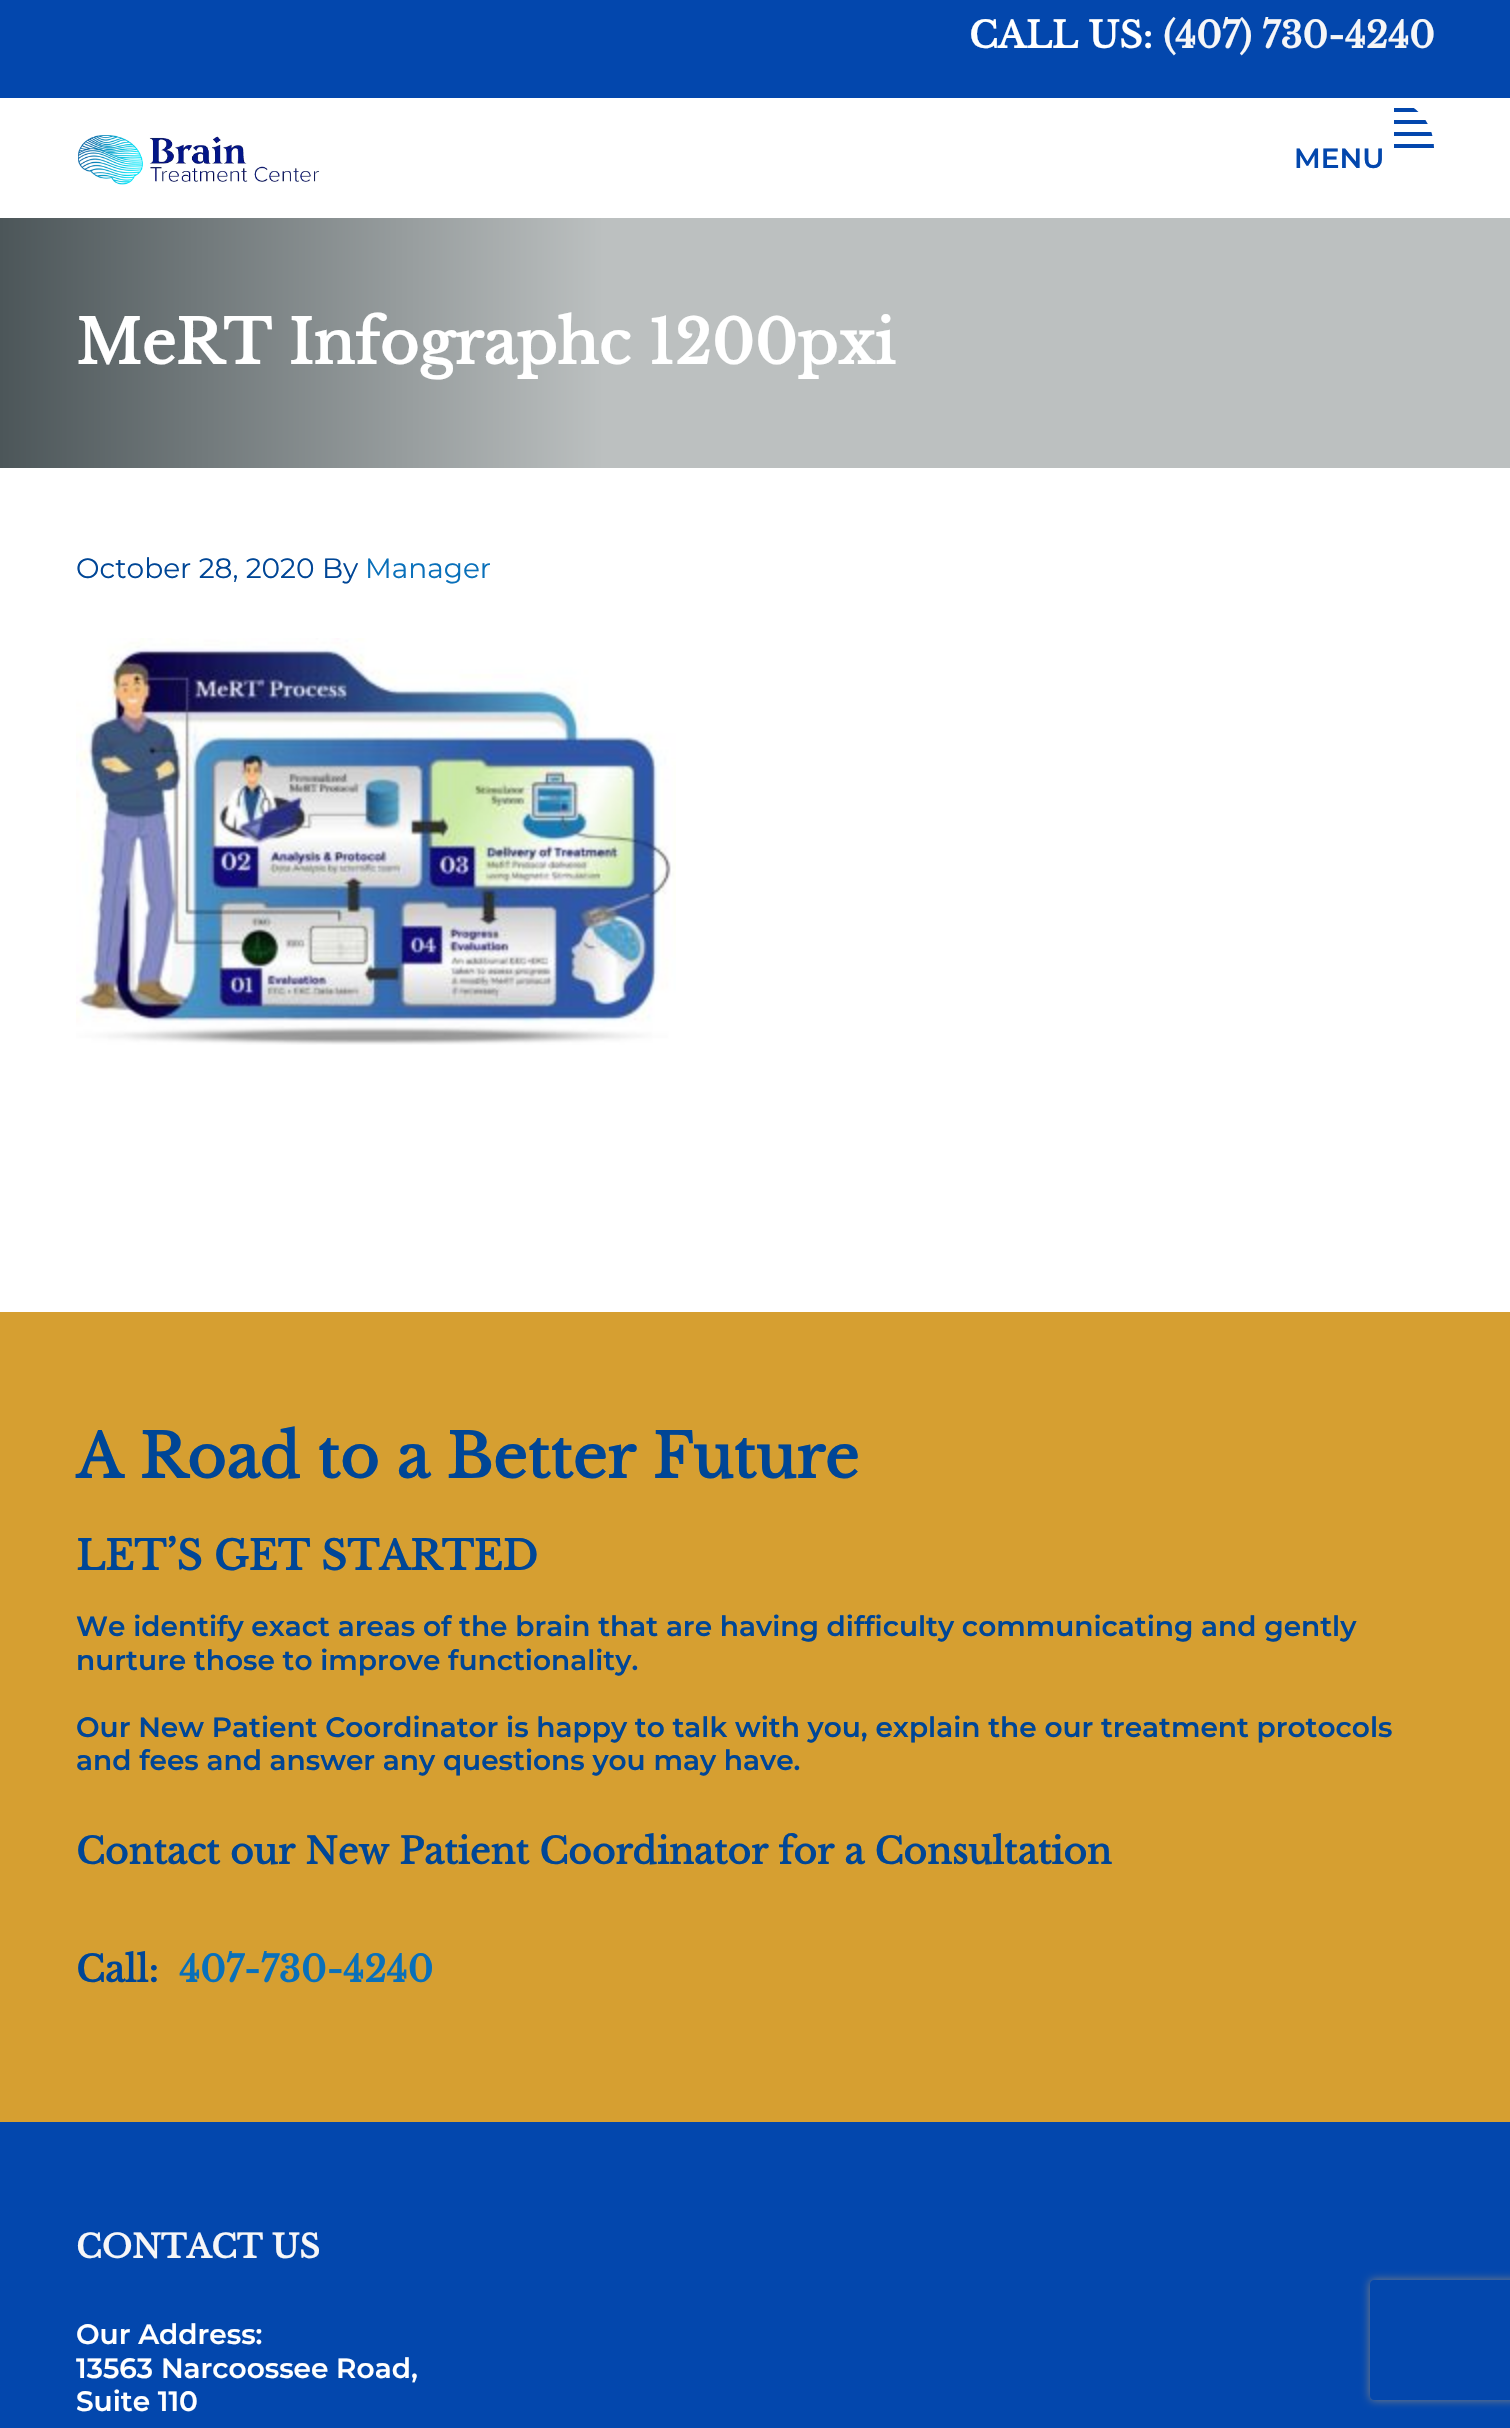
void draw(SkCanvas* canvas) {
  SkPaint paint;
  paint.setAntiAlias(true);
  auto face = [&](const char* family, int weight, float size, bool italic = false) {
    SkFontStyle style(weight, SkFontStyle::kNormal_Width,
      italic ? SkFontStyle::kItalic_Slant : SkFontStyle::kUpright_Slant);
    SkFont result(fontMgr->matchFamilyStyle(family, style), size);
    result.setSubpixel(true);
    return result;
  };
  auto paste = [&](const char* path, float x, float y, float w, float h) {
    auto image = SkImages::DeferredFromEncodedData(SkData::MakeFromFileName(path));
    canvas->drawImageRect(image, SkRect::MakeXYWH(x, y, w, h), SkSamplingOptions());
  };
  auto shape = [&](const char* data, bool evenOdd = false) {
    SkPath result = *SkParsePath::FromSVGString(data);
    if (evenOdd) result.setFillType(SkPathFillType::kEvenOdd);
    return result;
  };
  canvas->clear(0xffffffff);
  paint.setColor(0xff0347ad);
  canvas->drawRect(SkRect::MakeXYWH(0, 0, 1510, 98), paint);
  paste("img/1.png", 78, 135, 242, 50);
  canvas->save();
  canvas->clipPath(shape("M1344 98H1384C1411.5 98 1434 120.5 1434 148V168C1434 195.5 1411.5 218 1384 218H1344C1316.5 218 1294 195.5 1294 168V148C1294 120.5 1316.5 98 1344 98Z"), true);
  {
    const struct { float x, y, w, h; SkColor color; } items[] = {
      {1394, 144, 40, 4, 0xff0347ad},
      {1394, 132, 40, 4, 0xff0347ad},
      {1394, 120, 40, 4, 0xff0347ad},
      {1394, 108, 25, 4, 0xff0347ad},
    };
    for (auto [x, y, w, h, color] : items) {
      paint.setColor(color);
      canvas->drawRect(SkRect::MakeXYWH(x, y, w, h), paint);
    }
  }
  canvas->restore();
  {
    const SkColor colors[] = {0xff4c5659, 0xffbcc0c0};
    const float stops[] = {0, 0.4f};
    const SkPoint ends[] = {{0, 343}, {1510, 343}};
    paint.setShader(SkGradientShader::MakeLinear(ends, colors, stops, 2, SkTileMode::kClamp));
    paint.setAlpha(255);
  }
  canvas->drawRect(SkRect::MakeXYWH(0, 218, 1510, 250), paint);
  paste("img/2.png", 76, 638, 600, 407);
  paint.setShader(nullptr);
  paint.setColor(0xff0347ad);
  canvas->drawRect(SkRect::MakeXYWH(0, 2122, 1510, 306), paint);
  paint.setColor(0xffd69f31);
  canvas->drawRect(SkRect::MakeXYWH(0, 1312, 1510, 810), paint);
  canvas->save();
  canvas->clipPath(shape("M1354 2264H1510V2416H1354ZM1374 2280H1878C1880 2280 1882 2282 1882 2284V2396C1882 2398 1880 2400 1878 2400H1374C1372 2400 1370 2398 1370 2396V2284C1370 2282 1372 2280 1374 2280Z", true), true);
  paint.setColor(0xff808080);
  paint.setMaskFilter(SkMaskFilter::MakeBlur(kNormal_SkBlurStyle, 5));
  canvas->drawRoundRect(SkRect::MakeXYWH(1370, 2280, 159, 120), 4, 4, paint);
  paint.setMaskFilter(nullptr);
  canvas->restore();
  auto f0 = face("Libre Baskerville", 700, 36);
  paint.setColor(0xffffffff);
  canvas->drawString("CALL US:", 969, 48, f0, paint);
  paint.setColor(0xfff6f6f7);
  canvas->drawString("(407) 730-4240", 1163, 48, f0, paint);
  auto f1 = face("Montserrat", 600, 28);
  paint.setColor(0xff0347ad);
  canvas->drawString("MENU", 1294, 168, f1, paint);
  auto f2 = face("Libre Baskerville", 700, 60);
  paint.setColor(0xffffffff);
  canvas->drawString("MeRT Infographc 1200pxi", 76, 364, f2, paint);
  auto f3 = face("Montserrat", 100, 28);
  paint.setColor(0xff004696);
  canvas->drawString("October 28, 2020 By", 76, 578, f3, paint);
  paint.setColor(0xff0970ba);
  canvas->drawString("Manager", 365, 578, f3, paint);
  paint.setColor(0xff004696);
  canvas->drawString("A Road to a Better Future", 76, 1478, f2, paint);
  auto f4 = face("Libre Baskerville", 700, 40);
  canvas->drawString("LET’S GET STARTED", 76, 1570, f4, paint);
  {
    const struct { const char* s; float x, y; } items[] = {
      {"We identify exact areas of the brain that are having difficulty communicating and gently", 76, 1636},
      {"nurture those to improve functionality.", 76, 1670},
      {"Our New Patient Coordinator is happy to talk with you, explain the our treatment protocols", 76, 1737},
      {"and fees and answer any questions you may have.", 76, 1770},
    };
    for (auto [s, x, y] : items) {
      canvas->drawString(s, x, y, f1, paint);
    }
  }
  canvas->drawString("Contact our New Patient Coordinator for a Consultation", 76, 1864, f0, paint);
  canvas->drawString("Call:", 76, 1982, f0, paint);
  paint.setColor(0xff0970ba);
  canvas->drawString("407-730-4240", 179, 1982, f0, paint);
  auto f5 = face("Libre Baskerville", 700, 32);
  paint.setColor(0xfff6f6f7);
  canvas->drawString("CONTACT US", 76, 2258, f5, paint);
  paint.setColor(0xffffffff);
  {
    const struct { const char* s; float x, y; } items[] = {
      {"Our Address:", 76, 2344},
      {"13563 Narcoossee Road,", 76, 2378},
      {"Suite 110", 76, 2411},
    };
    for (auto [s, x, y] : items) {
      canvas->drawString(s, x, y, f1, paint);
    }
  }
}
